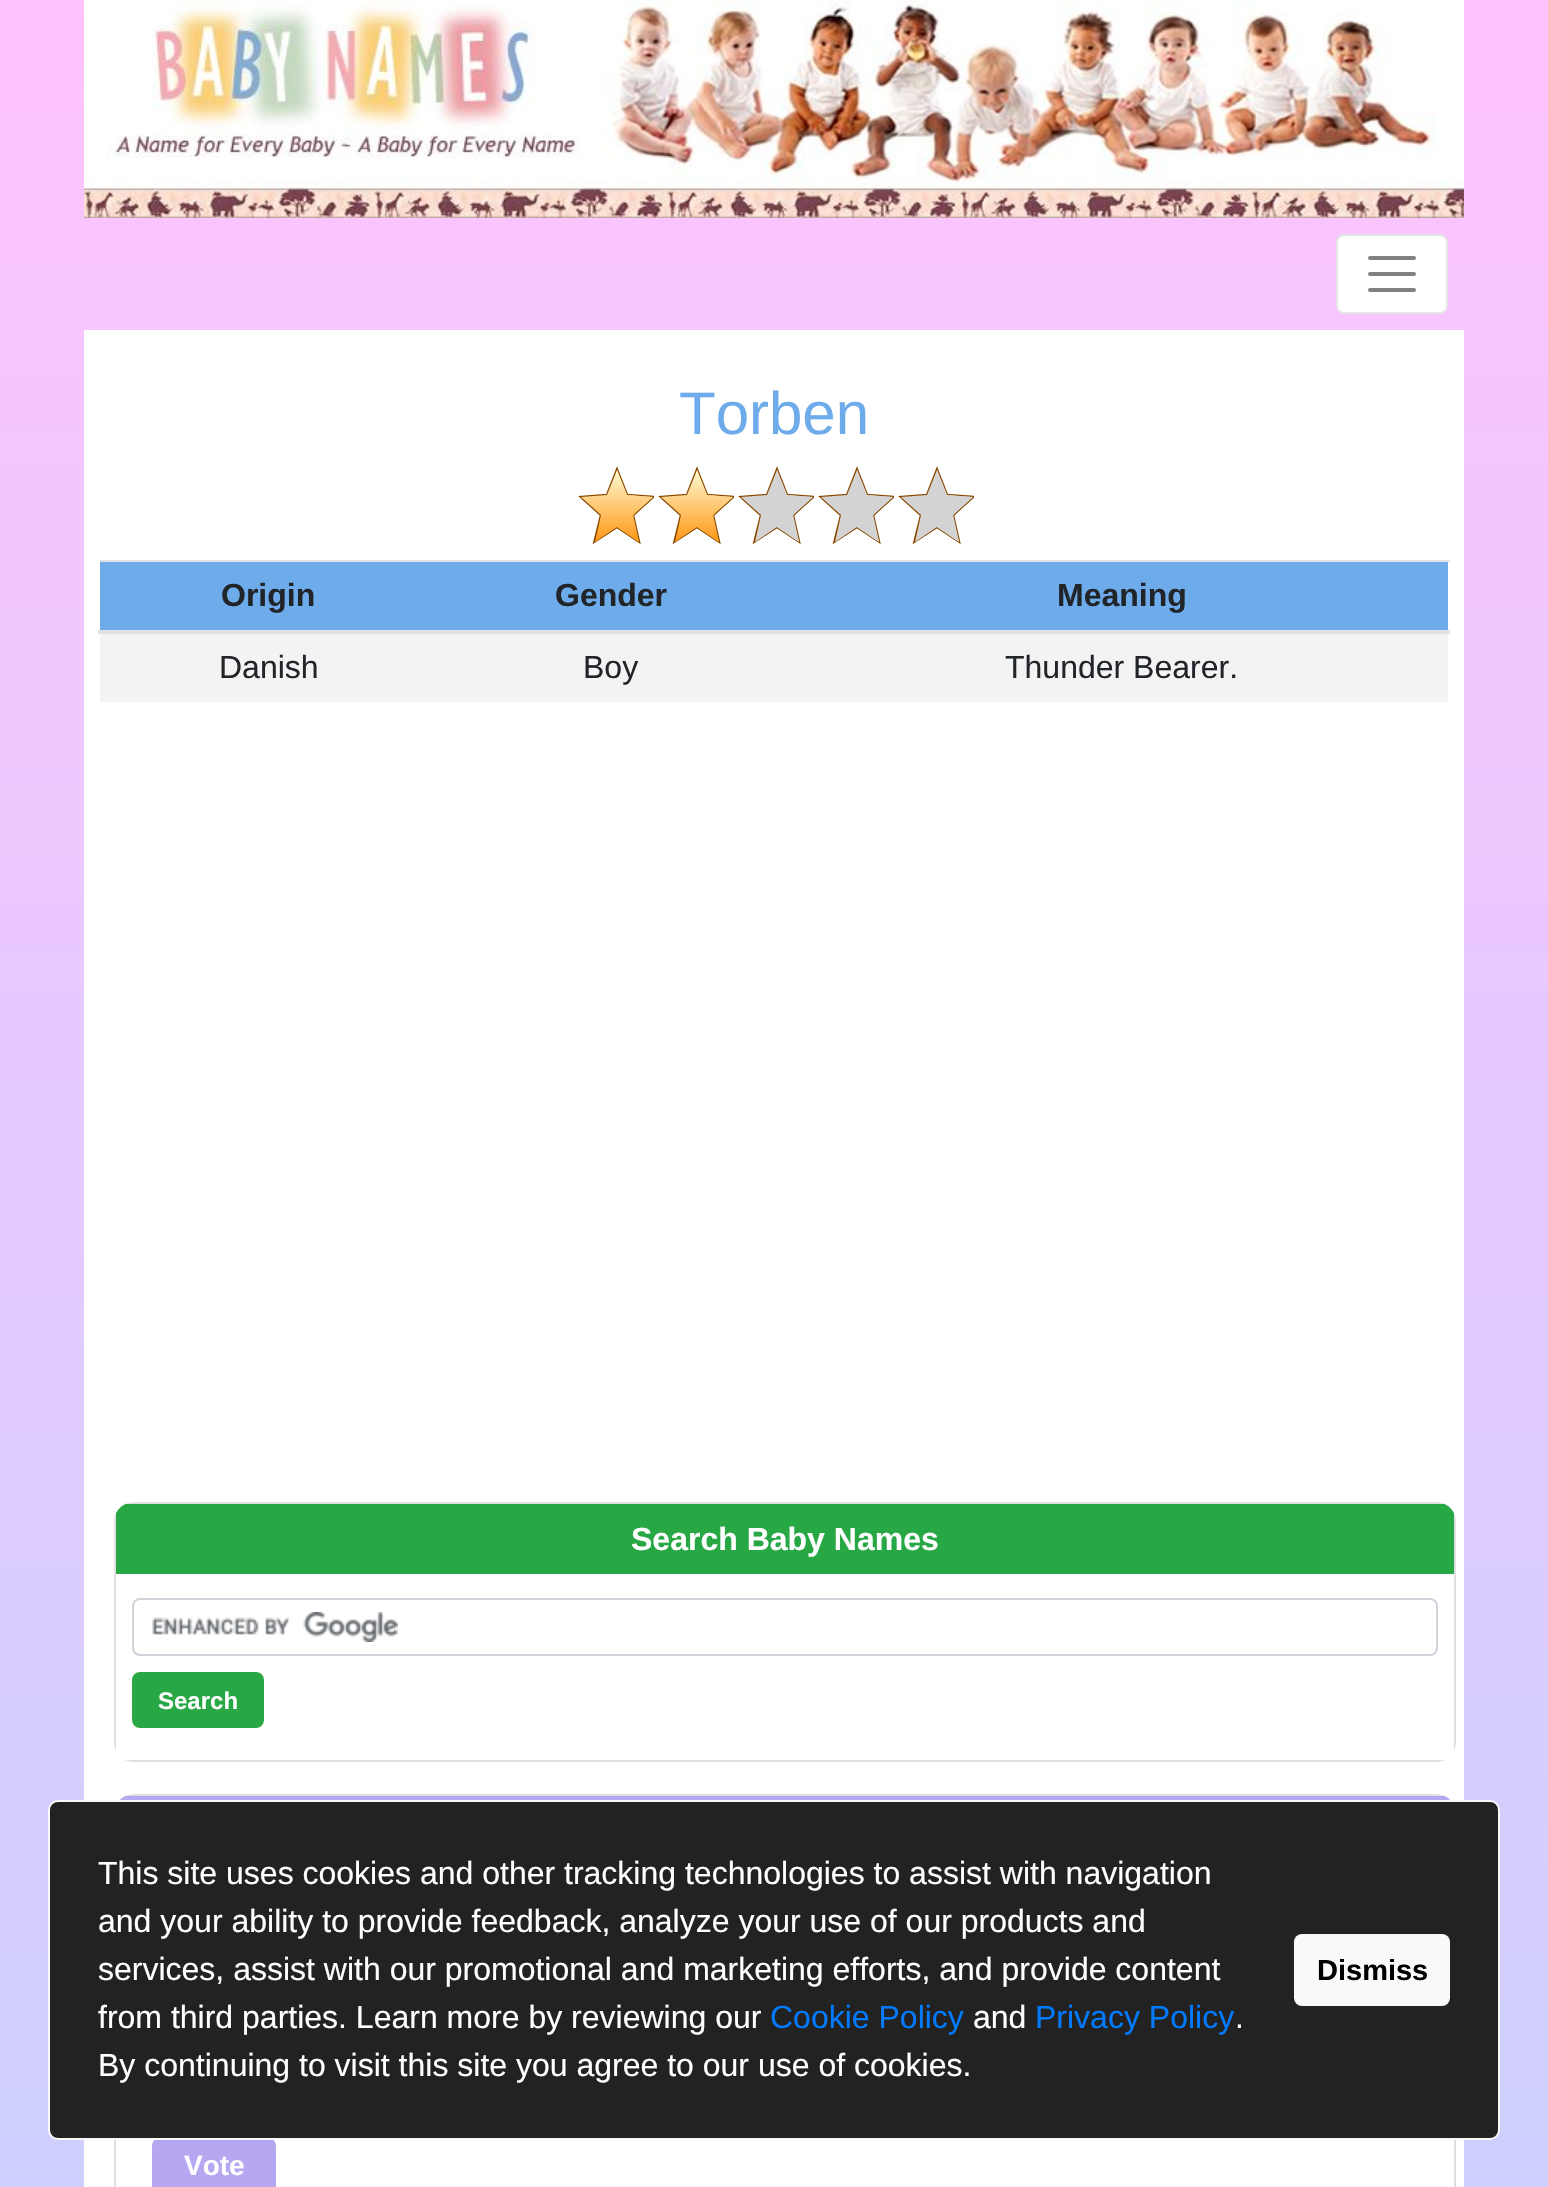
void draw(SkCanvas* canvas) {
  SkPaint paint;
  paint.setAntiAlias(true);
  auto face = [&](const char* family, int weight, float size, bool italic = false) {
    SkFontStyle style(weight, SkFontStyle::kNormal_Width,
      italic ? SkFontStyle::kItalic_Slant : SkFontStyle::kUpright_Slant);
    SkFont result(fontMgr->matchFamilyStyle(family, style), size);
    result.setSubpixel(true);
    return result;
  };
  auto paste = [&](const char* path, float x, float y, float w, float h) {
    auto image = SkImages::DeferredFromEncodedData(SkData::MakeFromFileName(path));
    canvas->drawImageRect(image, SkRect::MakeXYWH(x, y, w, h), SkSamplingOptions());
  };
  auto shape = [&](const char* data, bool evenOdd = false) {
    SkPath result = *SkParsePath::FromSVGString(data);
    if (evenOdd) result.setFillType(SkPathFillType::kEvenOdd);
    return result;
  };
  canvas->clear(0xffffffff);
  {
    const SkColor colors[] = {0xffffc3ff, 0xffb0d7fe};
    const float stops[] = {0, 1};
    const SkPoint ends[] = {{774, 0}, {774, 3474}};
    paint.setShader(SkGradientShader::MakeLinear(ends, colors, stops, 2, SkTileMode::kClamp));
    paint.setAlpha(255);
  }
  canvas->drawRect(SkRect::MakeXYWH(0, 0, 1548, 2187), paint);
  paste("img/1.png", 84, 0, 1380, 218);
  paint.setShader(nullptr);
  paint.setColor(0xffffffff);
  canvas->drawRoundRect(SkRect::MakeXYWH(1336, 234, 112, 80), 8, 8, paint);
  paint.setStroke(true);
  paint.setStrokeWidth(2);
  paint.setColor(0x1a000000);
  canvas->drawRoundRect(SkRect::MakeXYWH(1337, 235, 110, 78), 7, 7, paint);
  paint.setStrokeWidth(4);
  paint.setStrokeCap(SkPaint::kRound_Cap);
  paint.setColor(0xff808080);
  canvas->drawPath(shape("M1370 258H1414M1370 274H1414M1370 290H1414"), paint);
  paint.setStroke(false);
  paint.setColor(0xffffffff);
  canvas->drawRect(SkRect::MakeXYWH(84, 330, 1380, 1857), paint);
  canvas->save();
  canvas->clipRect(SkRect::MakeXYWH(574, 466, 80, 80));
  paint.setStroke(true);
  paint.setStrokeWidth(2.4f);
  paint.setStrokeCap(SkPaint::kButt_Cap);
  paint.setColor(0xff894a00);
  canvas->drawPath(shape("M633 515L653 497L627 495L617 469.5L607 495L581 497L601 515L594.5 541.5L617 527L639 541.5Z"), paint);
  canvas->restore();
  paint.setStroke(false);
  {
    const SkColor colors[] = {0xfffef7cd, 0xffff9511};
    const float stops[] = {0, 1};
    const SkPoint ends[] = {{566, 472}, {566, 544}};
    paint.setShader(SkGradientShader::MakeLinear(ends, colors, stops, 2, SkTileMode::kClamp));
    paint.setAlpha(255);
  }
  canvas->drawPath(shape("M633 515L653 497L627 495L617 470L607 495L581 497L601 515L595 542L617 527L639 542Z"), paint);
  canvas->drawPath(shape("M653 497L627 495L617 470V527L639 542L633 515Z"), paint);
  canvas->save();
  canvas->clipRect(SkRect::MakeXYWH(654, 466, 80, 80));
  paint.setStroke(true);
  paint.setShader(nullptr);
  paint.setColor(0xff894a00);
  canvas->drawPath(shape("M713 515L733 497L707 495L697 469.5L687 495L661 497L681 515L674.5 541.5L697 527L719 541.5Z"), paint);
  canvas->restore();
  paint.setStroke(false);
  {
    const SkColor colors[] = {0xfffef7cd, 0xffff9511};
    const float stops[] = {0, 1};
    const SkPoint ends[] = {{646, 472}, {646, 544}};
    paint.setShader(SkGradientShader::MakeLinear(ends, colors, stops, 2, SkTileMode::kClamp));
    paint.setAlpha(255);
  }
  canvas->drawPath(shape("M713 515L733 497L707 495L697 470L687 495L661 497L681 515L675 542L697 527L719 542Z"), paint);
  canvas->drawPath(shape("M733 497L707 495L697 470V527L719 542L713 515Z"), paint);
  canvas->save();
  canvas->clipRect(SkRect::MakeXYWH(734, 466, 80, 80));
  paint.setStroke(true);
  paint.setShader(nullptr);
  paint.setColor(0xff894a00);
  canvas->drawPath(shape("M793 515L813 497L787 495L777 469.5L767 495L741 497L761 515L754.5 541.5L777 527L799 541.5Z"), paint);
  canvas->restore();
  paint.setStroke(false);
  paint.setColor(0xffd3d3d3);
  canvas->drawPath(shape("M793 515L813 497L787 495L777 470L767 495L741 497L761 515L755 542L777 527L799 542Z"), paint);
  canvas->drawPath(shape("M813 497L787 495L777 470V527L799 542L793 515Z"), paint);
  canvas->save();
  canvas->clipRect(SkRect::MakeXYWH(814, 466, 80, 80));
  paint.setStroke(true);
  paint.setColor(0xff894a00);
  canvas->drawPath(shape("M873 515L893 497L867 495L857 469.5L847 495L821 497L841 515L834.5 541.5L857 527L879 541.5Z"), paint);
  canvas->restore();
  paint.setStroke(false);
  paint.setColor(0xffd3d3d3);
  canvas->drawPath(shape("M873 515L893 497L867 495L857 470L847 495L821 497L841 515L835 542L857 527L879 542Z"), paint);
  canvas->drawPath(shape("M893 497L867 495L857 470V527L879 542L873 515Z"), paint);
  canvas->save();
  canvas->clipRect(SkRect::MakeXYWH(894, 466, 80, 80));
  paint.setStroke(true);
  paint.setColor(0xff894a00);
  canvas->drawPath(shape("M953 515L973 497L947 495L937 469.5L927 495L901 497L921 515L914.5 541.5L937 527L959 541.5Z"), paint);
  canvas->restore();
  paint.setStroke(false);
  paint.setColor(0xffd3d3d3);
  canvas->drawPath(shape("M953 515L973 497L947 495L937 470L927 495L901 497L921 515L915 542L937 527L959 542Z"), paint);
  canvas->drawPath(shape("M973 497L947 495L937 470V527L959 542L953 515Z"), paint);
  {
    const struct { float x, y, w, h; SkColor color; } items[] = {
      {100, 562, 1348, 68, 0xff6dabea},
      {100, 560, 1350, 2, 0xffdee2e6},
      {98, 630, 1352, 4, 0xffdee2e6},
      {100, 634, 1348, 68, 0xfff3f3f3},
    };
    for (auto [x, y, w, h, color] : items) {
      paint.setColor(color);
      canvas->drawRect(SkRect::MakeXYWH(x, y, w, h), paint);
    }
  }
  paint.setColor(0xffdfdfdf);
  canvas->drawPath(shape("M114 1522V1742C114 1745 115 1748 116 1751V1513C115 1516 114 1519 114 1522ZM134 1502C131 1502 128 1503 125 1504H1445C1442 1503 1439 1502 1436 1502ZM1456 1522C1456 1519 1455 1516 1454 1513V1751C1455 1748 1456 1745 1456 1742ZM1436 1762C1439 1762 1442 1761 1445 1760H125C128 1761 131 1762 134 1762Z", true), paint);
  canvas->save();
  canvas->clipPath(shape("M134 1502H1436C1447 1502 1456 1511 1456 1522V1742C1456 1753 1447 1762 1436 1762H134C123 1762 114 1753 114 1742V1522C114 1511 123 1502 134 1502Z"), true);
  paint.setColor(0xff28a745);
  canvas->drawRect(SkRect::MakeXYWH(116, 1504, 1338, 70), paint);
  canvas->restore();
  paste("img/2.png", 152, 1612, 246, 30);
  paint.setStroke(true);
  paint.setStrokeWidth(2);
  paint.setColor(0xffced4da);
  canvas->drawRoundRect(SkRect::MakeXYWH(133, 1599, 1304, 56), 7, 7, paint);
  paint.setStroke(false);
  paint.setColor(0xff28a745);
  canvas->drawRoundRect(SkRect::MakeXYWH(133, 1673, 130, 54), 7, 7, paint);
  paint.setStroke(true);
  canvas->drawRoundRect(SkRect::MakeXYWH(133, 1673, 130, 54), 7, 7, paint);
  paint.setStroke(false);
  paint.setColor(0xffdfdfdf);
  canvas->drawPath(shape("M114 1814V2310C114 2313 115 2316 116 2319V1805C115 1808 114 1811 114 1814ZM134 1794C131 1794 128 1795 125 1796H1445C1442 1795 1439 1794 1436 1794ZM1456 1814C1456 1811 1455 1808 1454 1805V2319C1455 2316 1456 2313 1456 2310ZM1436 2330C1439 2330 1442 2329 1445 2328H125C128 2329 131 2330 134 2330Z", true), paint);
  canvas->save();
  canvas->clipPath(shape("M134 1794H1436C1447 1794 1456 1803 1456 1814V2310C1456 2321 1447 2330 1436 2330H134C123 2330 114 2321 114 2310V1814C114 1803 123 1794 134 1794Z"), true);
  paint.setColor(0xffb6a7f0);
  canvas->drawRect(SkRect::MakeXYWH(119, 1796, 1332, 4), paint);
  canvas->restore();
  canvas->drawRoundRect(SkRect::MakeXYWH(152, 2138, 124, 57), 8, 8, paint);
  paint.setColor(0xff222222);
  canvas->drawRoundRect(SkRect::MakeXYWH(49, 1801, 1450, 338), 9, 9, paint);
  paint.setStroke(true);
  paint.setColor(0xfff9f9f9);
  canvas->drawRoundRect(SkRect::MakeXYWH(49, 1801, 1450, 338), 9, 9, paint);
  paint.setStroke(false);
  canvas->drawRoundRect(SkRect::MakeXYWH(1294, 1934, 156, 72), 8, 8, paint);
  auto f0 = face("Liberation Sans", 400, 60);
  paint.setColor(0xff6dabea);
  canvas->drawString("Torben", 679, 434, f0, paint);
  auto f1 = face("Liberation Sans", 700, 32);
  paint.setColor(0xff212529);
  {
    const struct { const char* s; float x, y; } items[] = {
      {"Origin", 221, 606},
      {"Gender", 555, 606},
      {"Meaning", 1057, 606},
    };
    for (auto [s, x, y] : items) {
      canvas->drawString(s, x, y, f1, paint);
    }
  }
  auto f2 = face("Liberation Sans", 400, 32);
  {
    const struct { const char* s; float x, y; } items[] = {
      {"Danish", 219, 678},
      {"Boy", 583, 678},
      {"Thunder Bearer.", 1005, 678},
    };
    for (auto [s, x, y] : items) {
      canvas->drawString(s, x, y, f2, paint);
    }
  }
  paint.setColor(0xffffffff);
  canvas->drawString("Search Baby Names", 631, 1550, f1, paint);
  auto f3 = face("Liberation Sans", 700, 24);
  canvas->drawString("Search", 158, 1709, f3, paint);
  auto f4 = face("Liberation Sans", 700, 28);
  canvas->drawString("Vote", 184, 2175, f4, paint);
  {
    const struct { const char* s; float x, y; } items[] = {
      {"This site uses cookies and other tracking technologies to assist with navigation", 98, 1884},
      {"and your ability to provide feedback, analyze your use of our products and", 98, 1932},
      {"services, assist with our promotional and marketing efforts, and provide content", 98, 1980},
      {"from third parties. Learn more by reviewing our", 98, 2028},
    };
    for (auto [s, x, y] : items) {
      canvas->drawString(s, x, y, f2, paint);
    }
  }
  paint.setColor(0xff007bff);
  canvas->drawString("Cookie Policy", 770, 2028, f2, paint);
  paint.setColor(0xffffffff);
  canvas->drawString("and", 973, 2028, f2, paint);
  paint.setColor(0xff007bff);
  canvas->drawString("Privacy Policy", 1035, 2028, f2, paint);
  paint.setColor(0xffffffff);
  canvas->drawString(".", 1235, 2028, f2, paint);
  canvas->drawString("By continuing to visit this site you agree to our use of cookies.", 98, 2076, f2, paint);
  auto f5 = face("Liberation Sans", 700, 29);
  paint.setColor(0xff000000);
  canvas->drawString("Dismiss", 1317, 1980, f5, paint);
}
